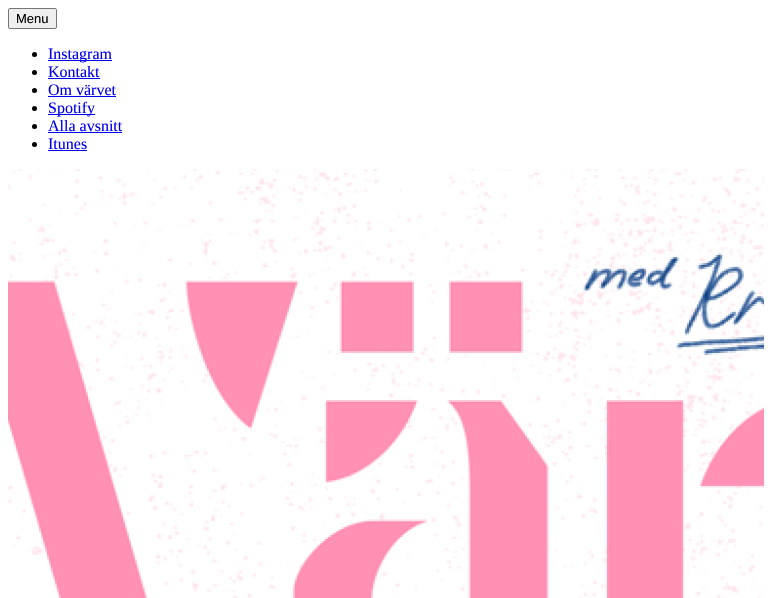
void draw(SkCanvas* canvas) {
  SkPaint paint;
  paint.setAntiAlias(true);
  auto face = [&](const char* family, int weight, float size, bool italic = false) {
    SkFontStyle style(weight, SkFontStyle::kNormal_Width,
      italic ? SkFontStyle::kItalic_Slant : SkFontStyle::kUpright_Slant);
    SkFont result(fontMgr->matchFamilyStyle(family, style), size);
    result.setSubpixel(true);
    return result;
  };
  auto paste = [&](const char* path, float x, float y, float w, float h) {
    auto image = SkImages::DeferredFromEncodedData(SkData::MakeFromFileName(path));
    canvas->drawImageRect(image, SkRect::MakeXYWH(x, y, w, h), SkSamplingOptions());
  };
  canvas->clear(0xffffffff);
  paint.setColor(0xffefefef);
  canvas->drawRoundRect(SkRect::MakeXYWH(8.5f, 8.5f, 48, 20), 1.5f, 1.5f, paint);
  paint.setStroke(true);
  paint.setStrokeWidth(1);
  paint.setColor(0xff767676);
  canvas->drawRoundRect(SkRect::MakeXYWH(8.5f, 8.5f, 48, 20), 1.5f, 1.5f, paint);
  paint.setStroke(false);
  paint.setColor(0xff000000);
  canvas->drawCircle(34.5f, 54.5f, 2.5f, paint);
  paint.setColor(0xff0000ee);
  canvas->drawRect(SkRect::MakeXYWH(48, 60, 64, 1), paint);
  paint.setColor(0xff000000);
  canvas->drawCircle(34.5f, 72.5f, 2.5f, paint);
  paint.setColor(0xff0000ee);
  canvas->drawRect(SkRect::MakeXYWH(48, 78, 52, 1), paint);
  paint.setColor(0xff000000);
  canvas->drawCircle(34.5f, 90.5f, 2.5f, paint);
  paint.setColor(0xff0000ee);
  canvas->drawRect(SkRect::MakeXYWH(48, 96, 68, 1), paint);
  paint.setColor(0xff000000);
  canvas->drawCircle(34.5f, 108.5f, 2.5f, paint);
  paint.setColor(0xff0000ee);
  canvas->drawRect(SkRect::MakeXYWH(48, 114, 47, 1), paint);
  paint.setColor(0xff000000);
  canvas->drawCircle(34.5f, 126.5f, 2.5f, paint);
  paint.setColor(0xff0000ee);
  canvas->drawRect(SkRect::MakeXYWH(48, 132, 74, 1), paint);
  paint.setColor(0xff000000);
  canvas->drawCircle(34.5f, 144.5f, 2.5f, paint);
  paint.setColor(0xff0000ee);
  canvas->drawRect(SkRect::MakeXYWH(48, 150, 39, 1), paint);
  paste("img/1.png", 8, 169, 756, 429);
  auto f0 = face("Liberation Sans", 400, 13);
  paint.setColor(0xff000000);
  canvas->drawString("Menu", 16, 23, f0, paint);
  auto f1 = face("Liberation Serif", 400, 16);
  paint.setColor(0xff0000ee);
  {
    const struct { const char* s; float x, y; } items[] = {
      {"Instagram", 48, 59},
      {"Kontakt", 48, 77},
      {"Om värvet", 48, 95},
      {"Spotify", 48, 113},
      {"Alla avsnitt", 48, 131},
      {"Itunes", 48, 149},
    };
    for (auto [s, x, y] : items) {
      canvas->drawString(s, x, y, f1, paint);
    }
  }
}
